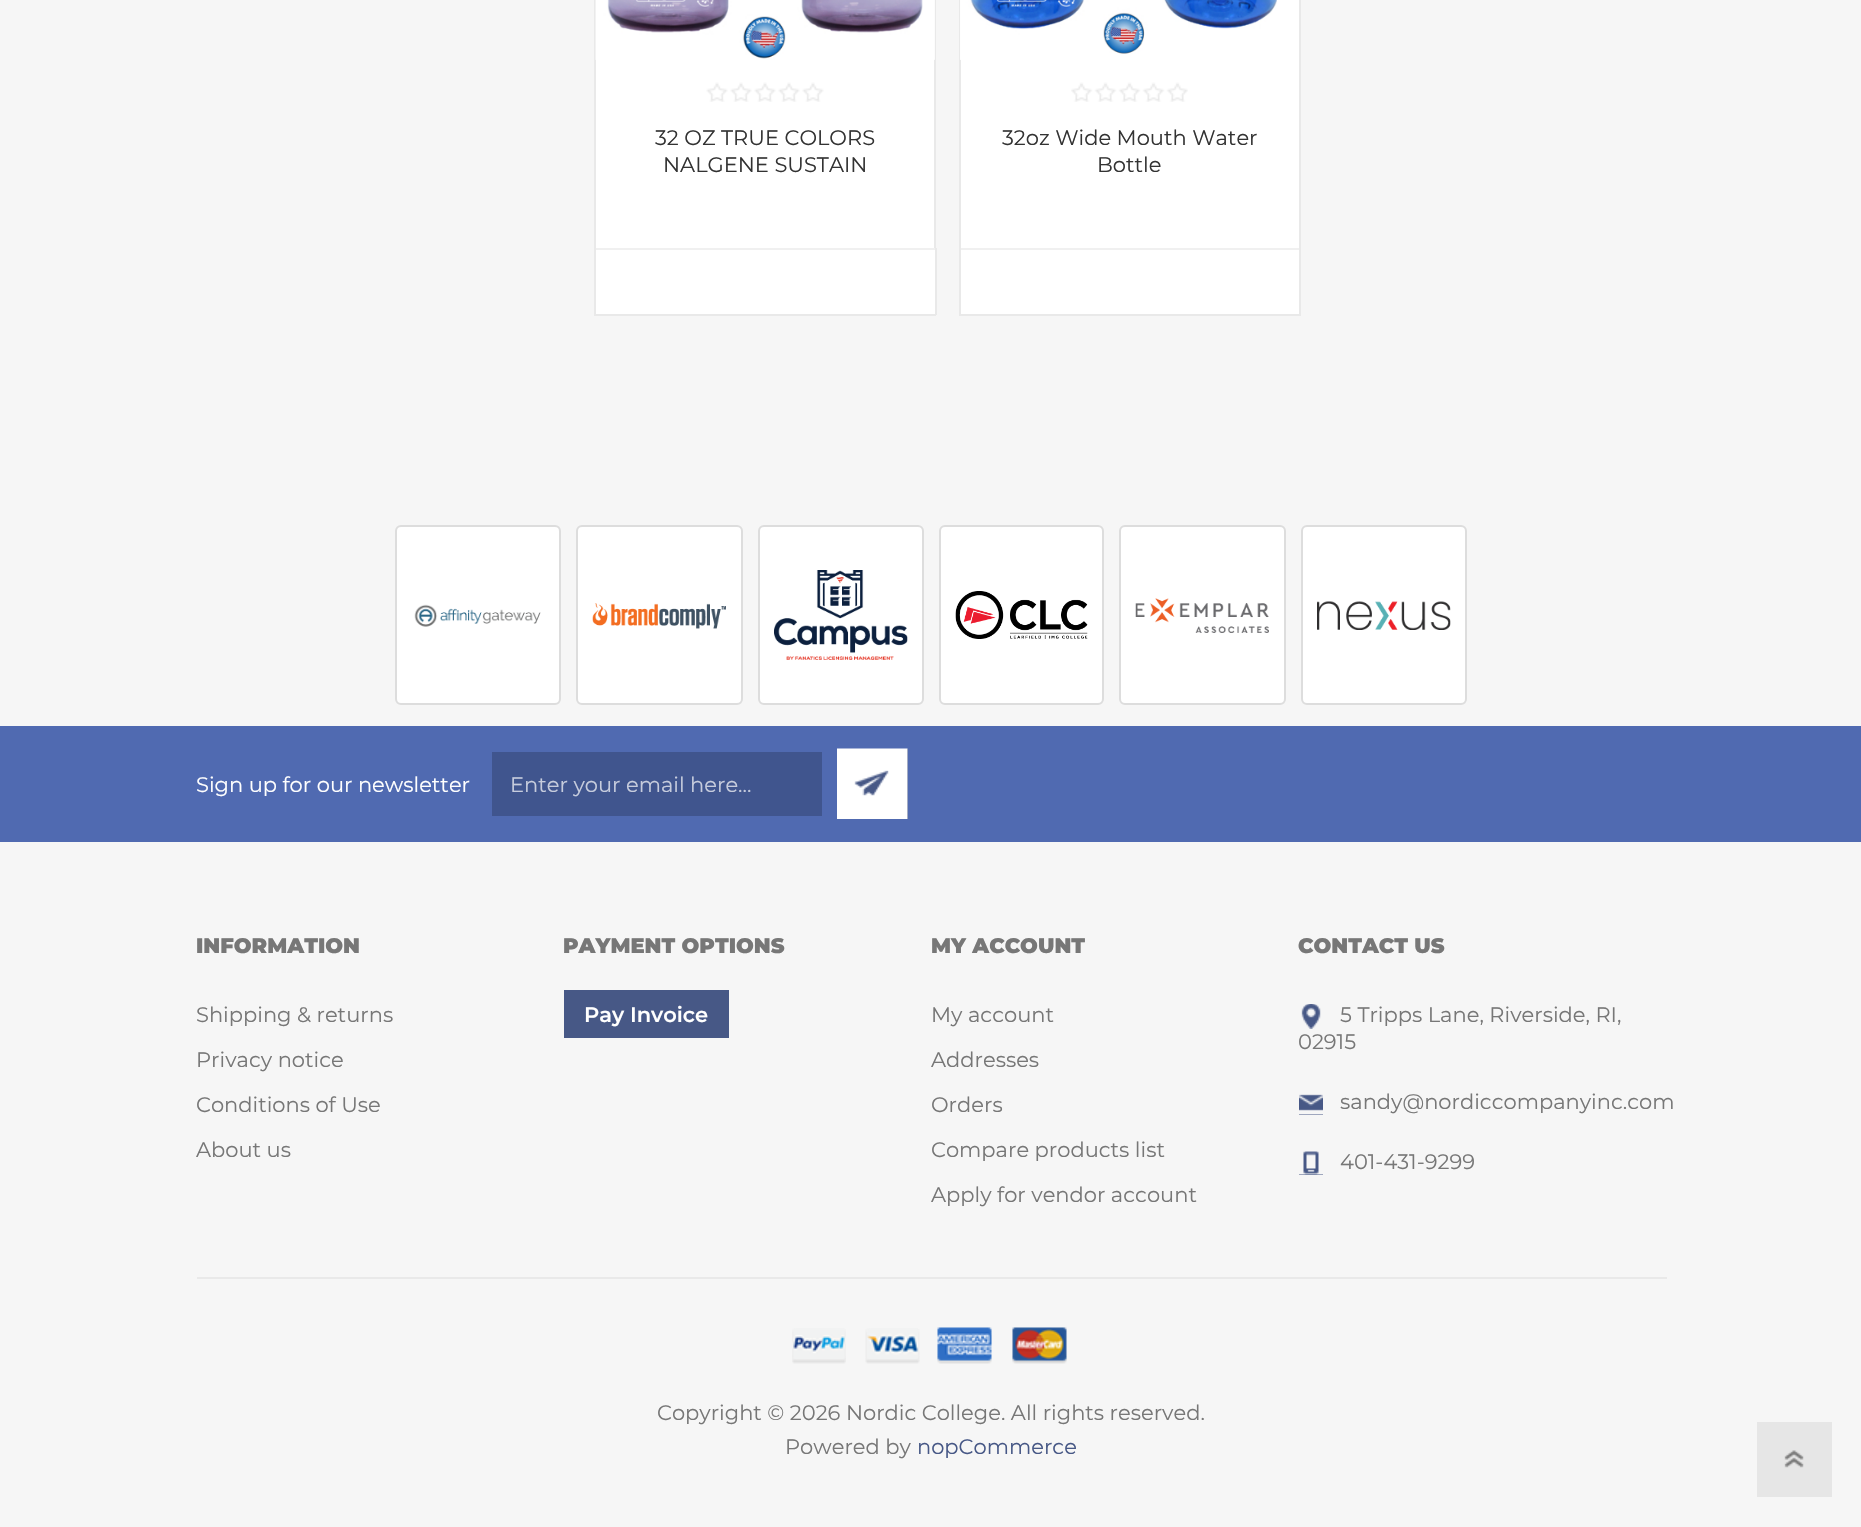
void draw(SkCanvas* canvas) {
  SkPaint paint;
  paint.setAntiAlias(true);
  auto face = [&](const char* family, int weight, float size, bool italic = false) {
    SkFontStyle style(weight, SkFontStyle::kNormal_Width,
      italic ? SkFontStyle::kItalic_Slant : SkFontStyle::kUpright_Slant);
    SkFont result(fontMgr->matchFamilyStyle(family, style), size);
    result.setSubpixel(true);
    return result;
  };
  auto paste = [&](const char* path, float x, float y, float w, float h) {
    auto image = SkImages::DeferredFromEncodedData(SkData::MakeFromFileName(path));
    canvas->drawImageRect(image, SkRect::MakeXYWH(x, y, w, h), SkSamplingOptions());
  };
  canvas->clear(0xfff6f6f6);
  paint.setColor(0xffffffff);
  canvas->drawRect(SkRect::MakeXYWH(596, 0, 338, 248), paint);
  paint.setStroke(true);
  paint.setStrokeWidth(2);
  paint.setColor(0xffe9e9e9);
  canvas->drawRect(SkRect::MakeXYWH(595, -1, 340, 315), paint);
  paste("img/1.png", 595, 0, 340, 60);
  paste("img/2.png", 706, 82, 118, 20);
  paint.setStroke(false);
  {
    const struct { float x, y, w, h; SkColor color; } items[] = {
      {596, 250, 339, 64, 0xffffffff},
      {594, 248, 342, 2, 0xfff0f0f0},
      {935, 248, 2, 67, 0xffe9e9e9},
      {594, 315, 342, 1, 0xffe9e9e9},
      {594, 248, 2, 2, 0xffe9e9e9},
      {961, 0, 338, 248, 0xffffffff},
    };
    for (auto [x, y, w, h, color] : items) {
      paint.setColor(color);
      canvas->drawRect(SkRect::MakeXYWH(x, y, w, h), paint);
    }
  }
  paint.setStroke(true);
  paint.setColor(0xffe9e9e9);
  canvas->drawRect(SkRect::MakeXYWH(960, -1, 340, 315), paint);
  paste("img/3.png", 960, 0, 317, 60);
  paste("img/4.png", 1071, 82, 117, 20);
  paint.setStroke(false);
  {
    const struct { float x, y, w, h; SkColor color; } items[] = {
      {961, 250, 338, 64, 0xffffffff},
      {959, 248, 342, 2, 0xfff0f0f0},
      {1299, 248, 2, 2, 0xffe9e9e9},
      {959, 315, 342, 1, 0xffe9e9e9},
      {959, 248, 2, 2, 0xffe9e9e9},
    };
    for (auto [x, y, w, h, color] : items) {
      paint.setColor(color);
      canvas->drawRect(SkRect::MakeXYWH(x, y, w, h), paint);
    }
  }
  paint.setColor(0xffffffff);
  canvas->drawRoundRect(SkRect::MakeXYWH(396, 526, 164, 178), 5, 5, paint);
  paint.setStroke(true);
  paint.setColor(0xffdddddd);
  canvas->drawRoundRect(SkRect::MakeXYWH(396, 526, 164, 178), 5, 5, paint);
  paste("img/5.png", 414, 604, 127, 23);
  paint.setStroke(false);
  paint.setColor(0xffffffff);
  canvas->drawRoundRect(SkRect::MakeXYWH(577, 526, 165, 178), 5, 5, paint);
  paint.setStroke(true);
  paint.setColor(0xffdddddd);
  canvas->drawRoundRect(SkRect::MakeXYWH(577, 526, 165, 178), 5, 5, paint);
  paste("img/6.png", 592, 603, 134, 26);
  paint.setStroke(false);
  paint.setColor(0xffffffff);
  canvas->drawRoundRect(SkRect::MakeXYWH(759, 526, 164, 178), 5, 5, paint);
  paint.setStroke(true);
  paint.setColor(0xffdddddd);
  canvas->drawRoundRect(SkRect::MakeXYWH(759, 526, 164, 178), 5, 5, paint);
  paste("img/7.png", 774, 570, 134, 90);
  paint.setStroke(false);
  paint.setColor(0xffffffff);
  canvas->drawRoundRect(SkRect::MakeXYWH(940, 526, 163, 178), 5, 5, paint);
  paint.setStroke(true);
  paint.setColor(0xffdddddd);
  canvas->drawRoundRect(SkRect::MakeXYWH(940, 526, 163, 178), 5, 5, paint);
  paste("img/8.png", 955, 591, 133, 48);
  paint.setStroke(false);
  paint.setColor(0xffffffff);
  canvas->drawRoundRect(SkRect::MakeXYWH(1120, 526, 165, 178), 5, 5, paint);
  paint.setStroke(true);
  paint.setColor(0xffdddddd);
  canvas->drawRoundRect(SkRect::MakeXYWH(1120, 526, 165, 178), 5, 5, paint);
  paste("img/9.png", 1135, 598, 134, 35);
  paint.setStroke(false);
  paint.setColor(0xffffffff);
  canvas->drawRoundRect(SkRect::MakeXYWH(1302, 526, 164, 178), 5, 5, paint);
  paint.setStroke(true);
  paint.setColor(0xffdddddd);
  canvas->drawRoundRect(SkRect::MakeXYWH(1302, 526, 164, 178), 5, 5, paint);
  paste("img/10.png", 1317, 601, 134, 29);
  paint.setStroke(false);
  {
    const struct { float x, y, w, h; SkColor color; } items[] = {
      {0, 726, 1861, 116, 0xff506ab1},
      {492, 752, 330, 64, 0xff40558e},
      {854, 749, 54, 70, 0xff475886},
    };
    for (auto [x, y, w, h, color] : items) {
      paint.setColor(color);
      canvas->drawRect(SkRect::MakeXYWH(x, y, w, h), paint);
    }
  }
  paste("img/11.png", 837, 748, 71, 71);
  canvas->drawRect(SkRect::MakeXYWH(564, 990, 165, 48), paint);
  canvas->drawRect(SkRect::MakeXYWH(1301, 1004, 20, 25), paint);
  paste("img/12.png", 1299, 1004, 24, 25);
  canvas->drawRect(SkRect::MakeXYWH(1299, 1094, 24, 21), paint);
  paste("img/13.png", 1299, 1091, 24, 24);
  canvas->drawRect(SkRect::MakeXYWH(1299, 1151, 24, 24), paint);
  paste("img/14.png", 1299, 1151, 24, 24);
  paint.setColor(0xffe9e9e9);
  canvas->drawRect(SkRect::MakeXYWH(197, 1277, 1470, 2), paint);
  paste("img/15.png", 792, 1328, 54, 36);
  paste("img/16.png", 865, 1328, 55, 36);
  paste("img/17.png", 937, 1327, 55, 37);
  paste("img/18.png", 1012, 1327, 55, 37);
  paint.setColor(0xffe6e6e6);
  canvas->drawRect(SkRect::MakeXYWH(1757, 1422, 75, 75), paint);
  paste("img/19.png", 1784, 1450, 20, 18);
  auto f0 = face("Montserrat", 400, 21);
  paint.setColor(0xff333333);
  {
    const struct { const char* s; float x, y; } items[] = {
      {"32 OZ TRUE COLORS", 655, 145},
      {"NALGENE SUSTAIN", 663, 172},
      {"32oz Wide Mouth Water", 1002, 145},
      {"Bottle", 1097, 172},
    };
    for (auto [s, x, y] : items) {
      canvas->drawString(s, x, y, f0, paint);
    }
  }
  paint.setColor(0xffffffff);
  canvas->drawString("Sign up for our newsletter", 196, 792, f0, paint);
  paint.setColor(0xffc6ccdd);
  canvas->drawString("Enter your email here...", 510, 792, f0, paint);
  auto f1 = face("Montserrat", 900, 21);
  paint.setColor(0xff777777);
  canvas->drawString("INFORMATION", 196, 953, f1, paint);
  {
    const struct { const char* s; float x, y; } items[] = {
      {"Shipping & returns", 196, 1022},
      {"Privacy notice", 196, 1067},
      {"Conditions of Use", 196, 1112},
      {"About us", 196, 1157},
    };
    for (auto [s, x, y] : items) {
      canvas->drawString(s, x, y, f0, paint);
    }
  }
  canvas->drawString("PAYMENT OPTIONS", 563, 953, f1, paint);
  auto f2 = face("Montserrat", 600, 21);
  paint.setColor(0xffffffff);
  canvas->drawString("Pay Invoice", 584, 1022, f2, paint);
  paint.setColor(0xff777777);
  canvas->drawString("MY ACCOUNT", 931, 953, f1, paint);
  {
    const struct { const char* s; float x, y; } items[] = {
      {"My account", 931, 1022},
      {"Addresses", 931, 1067},
      {"Orders", 931, 1112},
      {"Compare products list", 931, 1157},
      {"Apply for vendor account", 931, 1202},
    };
    for (auto [s, x, y] : items) {
      canvas->drawString(s, x, y, f0, paint);
    }
  }
  canvas->drawString("CONTACT US", 1298, 953, f1, paint);
  {
    const struct { const char* s; float x, y; } items[] = {
      {"5 Tripps Lane, Riverside, RI,", 1340, 1022},
      {"02915", 1298, 1049},
      {"sandy@nordiccompanyinc.com", 1340, 1109},
      {"401-431-9299", 1340, 1169},
      {"Copyright © 2026 Nordic College. All rights reserved.", 657, 1420},
      {"Powered by", 785, 1454},
    };
    for (auto [s, x, y] : items) {
      canvas->drawString(s, x, y, f0, paint);
    }
  }
  paint.setColor(0xff475886);
  canvas->drawString("nopCommerce", 917, 1454, f0, paint);
}
